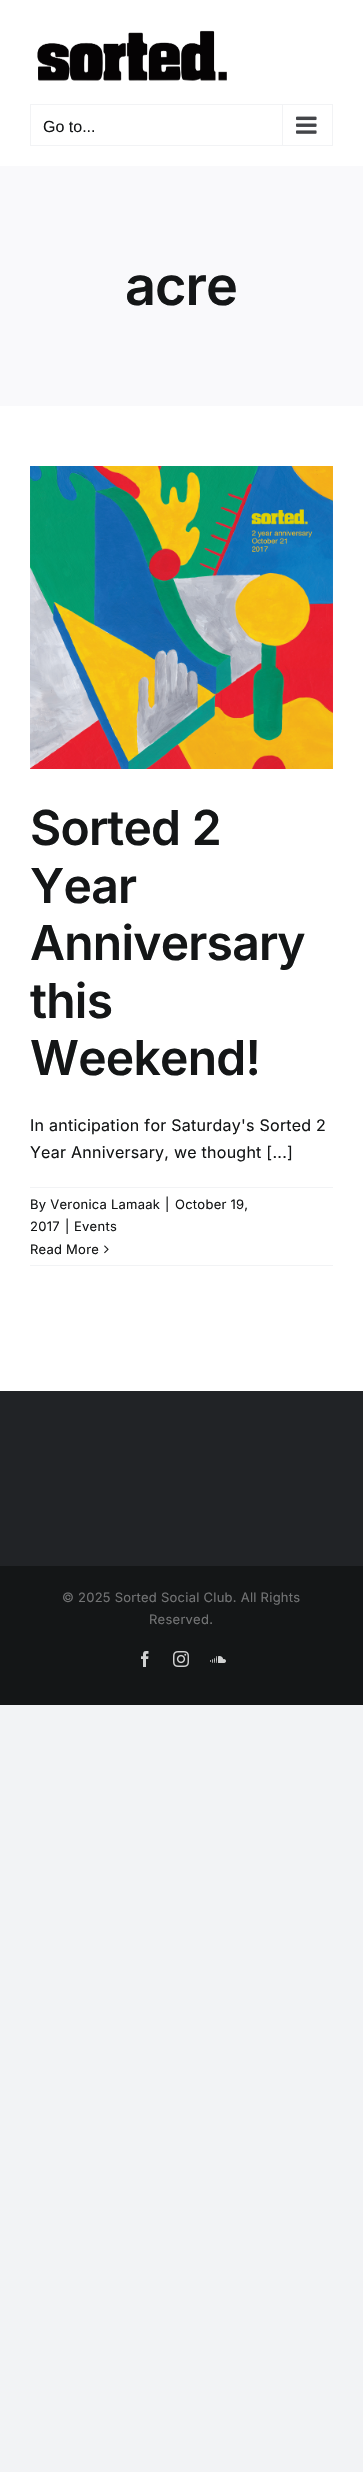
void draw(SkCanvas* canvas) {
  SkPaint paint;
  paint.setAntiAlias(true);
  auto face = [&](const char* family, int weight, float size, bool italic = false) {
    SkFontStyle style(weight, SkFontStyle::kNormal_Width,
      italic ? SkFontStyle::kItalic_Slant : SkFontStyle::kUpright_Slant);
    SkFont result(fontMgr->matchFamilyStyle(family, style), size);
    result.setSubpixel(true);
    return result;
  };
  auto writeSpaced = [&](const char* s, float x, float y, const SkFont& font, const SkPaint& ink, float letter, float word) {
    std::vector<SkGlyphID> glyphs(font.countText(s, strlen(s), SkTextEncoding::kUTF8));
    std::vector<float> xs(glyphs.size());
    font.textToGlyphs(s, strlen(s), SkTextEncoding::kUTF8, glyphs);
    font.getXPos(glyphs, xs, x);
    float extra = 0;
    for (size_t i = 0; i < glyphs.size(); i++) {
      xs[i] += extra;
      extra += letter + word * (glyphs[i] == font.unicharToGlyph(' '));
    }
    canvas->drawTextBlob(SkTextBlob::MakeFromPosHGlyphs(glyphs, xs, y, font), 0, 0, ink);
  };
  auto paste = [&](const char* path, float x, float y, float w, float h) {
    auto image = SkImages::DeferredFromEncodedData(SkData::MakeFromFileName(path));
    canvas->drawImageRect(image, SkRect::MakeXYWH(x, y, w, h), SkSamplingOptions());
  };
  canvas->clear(0xfff2f3f5);
  paint.setColor(0xffffffff);
  canvas->drawRect(SkRect::MakeXYWH(0, 0, 363, 1391), paint);
  paste("img/1.png", 37, 30, 190, 51);
  paint.setStroke(true);
  paint.setStrokeWidth(1);
  paint.setColor(0xfff2f3f5);
  canvas->drawRect(SkRect::MakeXYWH(30.5f, 104.5f, 302, 41), paint);
  paint.setStroke(false);
  canvas->drawRect(SkRect::MakeXYWH(282, 105, 1, 40), paint);
  paste("img/2.png", 296, 116, 21, 18);
  paint.setColor(0xfff9f9fb);
  canvas->drawRect(SkRect::MakeXYWH(0, 166, 363, 240), paint);
  paste("img/3.png", 30, 466, 303, 303);
  paint.setColor(0xfff2f3f5);
  canvas->drawRect(SkRect::MakeXYWH(30, 1187, 303, 1), paint);
  canvas->drawRect(SkRect::MakeXYWH(30, 1265, 303, 1), paint);
  paste("img/4.png", 104, 1245, 5, 9);
  paint.setColor(0xff212326);
  canvas->drawRect(SkRect::MakeXYWH(0, 1391, 363, 175), paint);
  paint.setColor(0xff141617);
  canvas->drawRect(SkRect::MakeXYWH(0, 1566, 363, 139), paint);
  paste("img/5.png", 141, 1651, 8, 16);
  paste("img/6.png", 173, 1651, 16, 16);
  paste("img/7.png", 210, 1656, 16, 7);
  auto f0 = face("Liberation Sans", 400, 16);
  canvas->drawString("Go to...", 43, 132, f0, paint);
  auto f1 = face("Inter", 600, 54);
  writeSpaced("acre", 125, 305, f1, paint, -1, 0);
  auto f2 = face("Inter", 600, 48);
  {
    const struct { const char* s; float x, y; } items[] = {
      {"Sorted 2", 30, 845},
      {"Year", 30, 903},
      {"Anniversary", 30, 960},
      {"this", 30, 1018},
      {"Weekend!", 30, 1075},
    };
    for (auto [s, x, y] : items) {
      writeSpaced(s, x, y, f2, paint, -0.75f, 0);
    }
  }
  auto f3 = face("Inter", 400, 16);
  writeSpaced("In anticipation for Saturday's Sorted 2", 30, 1131, f3, paint, 0.25f, 0);
  writeSpaced("Year Anniversary, we thought [...]", 30, 1158, f3, paint, 0.25f, 0);
  auto f4 = face("Inter", 400, 13);
  {
    const struct { const char* s; float x, y; } items[] = {
      {"By Veronica Lamaak", 30, 1209},
      {"|", 165, 1209},
      {"October 19,", 175, 1209},
      {"2017", 30, 1231},
      {"|", 65, 1231},
      {"Events", 74, 1231},
      {"Read More", 30, 1254},
    };
    for (auto [s, x, y] : items) {
      writeSpaced(s, x, y, f4, paint, 0.25f, 0);
    }
  }
  paint.setColor(0xff727374);
  writeSpaced("© 2025 Sorted Social Club. All Rights", 62, 1602, f4, paint, 0.25f, 0);
  writeSpaced("Reserved.", 149, 1624, f4, paint, 0.25f, 0);
}
